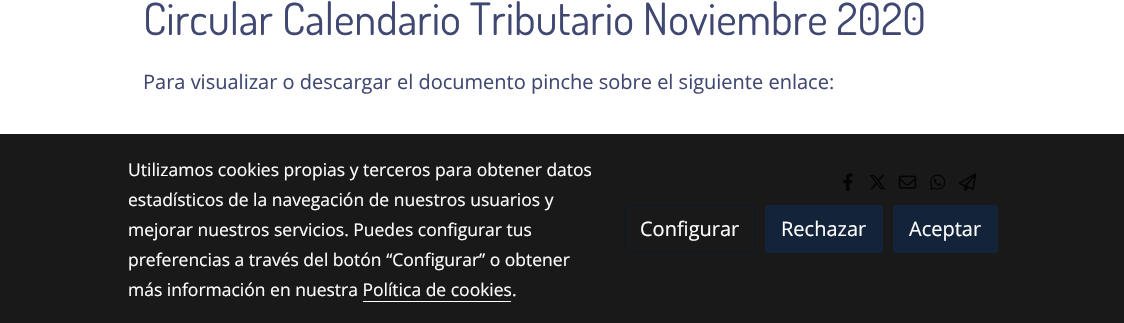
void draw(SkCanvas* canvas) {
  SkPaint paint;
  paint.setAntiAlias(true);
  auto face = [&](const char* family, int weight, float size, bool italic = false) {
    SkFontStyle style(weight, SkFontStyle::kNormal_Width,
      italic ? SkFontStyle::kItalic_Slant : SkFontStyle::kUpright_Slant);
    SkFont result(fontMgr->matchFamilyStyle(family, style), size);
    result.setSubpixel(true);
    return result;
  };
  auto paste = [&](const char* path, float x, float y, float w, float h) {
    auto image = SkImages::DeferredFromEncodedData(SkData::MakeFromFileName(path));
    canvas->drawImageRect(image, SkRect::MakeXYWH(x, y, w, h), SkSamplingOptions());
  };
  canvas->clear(0xffffffff);
  paste("img/1.png", 843, 173, 10, 18);
  paste("img/2.png", 869, 175, 17, 15);
  paste("img/3.png", 898, 175, 19, 14);
  paste("img/4.png", 930, 174, 16, 16);
  paste("img/5.png", 958, 173, 19, 18);
  paint.setColor(0xe6000000);
  canvas->drawRect(SkRect::MakeXYWH(0, 134, 1124, 189), paint);
  paint.setColor(0xffffffff);
  canvas->drawRect(SkRect::MakeXYWH(363, 301, 148, 1), paint);
  paint.setStroke(true);
  paint.setStrokeWidth(1);
  paint.setColor(0xff0d1827);
  canvas->drawRoundRect(SkRect::MakeXYWH(624.5f, 205.5f, 130, 47), 2.5f, 2.5f, paint);
  paint.setStroke(false);
  paint.setColor(0xff13243a);
  canvas->drawRoundRect(SkRect::MakeXYWH(765.5f, 205.5f, 117, 47), 2.5f, 2.5f, paint);
  paint.setStroke(true);
  canvas->drawRoundRect(SkRect::MakeXYWH(765.5f, 205.5f, 117, 47), 2.5f, 2.5f, paint);
  paint.setStroke(false);
  canvas->drawRoundRect(SkRect::MakeXYWH(893.5f, 205.5f, 104, 47), 2.5f, 2.5f, paint);
  paint.setStroke(true);
  canvas->drawRoundRect(SkRect::MakeXYWH(893.5f, 205.5f, 104, 47), 2.5f, 2.5f, paint);
  auto f0 = face("Dosis", 400, 44.4f);
  paint.setStroke(false);
  paint.setColor(0xff404872);
  canvas->drawString("Circular Calendario Tributario Noviembre 2020", 143, 35, f0, paint);
  auto f1 = face("Open Sans", 400, 20);
  canvas->drawString("Para visualizar o descargar el documento pinche sobre el siguiente enlace:", 143, 89, f1, paint);
  auto f2 = face("Open Sans", 400, 17.5f);
  paint.setColor(0xffffffff);
  {
    const struct { const char* s; float x, y; } items[] = {
      {"Utilizamos cookies propias y terceros para obtener datos", 128, 176},
      {"estadísticos de la navegación de nuestros usuarios y", 128, 206},
      {"mejorar nuestros servicios. Puedes configurar tus", 128, 236},
      {"preferencias a través del botón “Configurar” o obtener", 128, 266},
      {"más información en nuestra Política de cookies.", 128, 296},
    };
    for (auto [s, x, y] : items) {
      canvas->drawString(s, x, y, f2, paint);
    }
  }
  {
    const struct { const char* s; float x, y; } items[] = {
      {"Configurar", 640, 236},
      {"Rechazar", 781, 236},
      {"Aceptar", 909, 236},
    };
    for (auto [s, x, y] : items) {
      canvas->drawString(s, x, y, f1, paint);
    }
  }
}
